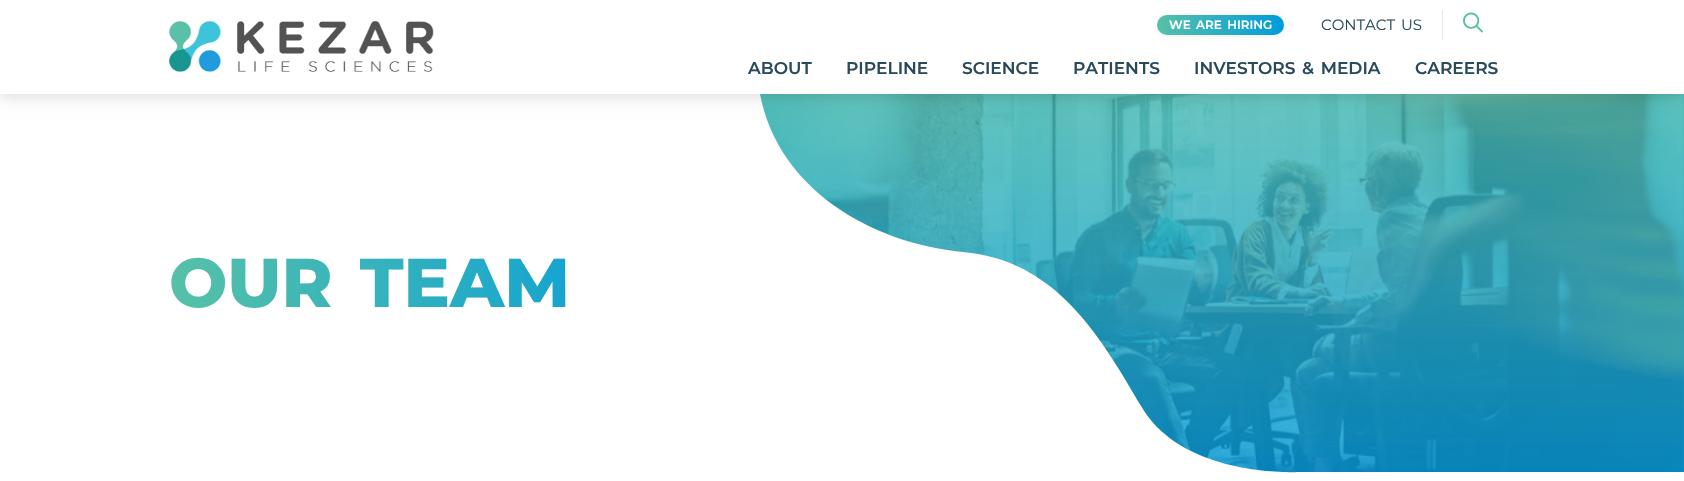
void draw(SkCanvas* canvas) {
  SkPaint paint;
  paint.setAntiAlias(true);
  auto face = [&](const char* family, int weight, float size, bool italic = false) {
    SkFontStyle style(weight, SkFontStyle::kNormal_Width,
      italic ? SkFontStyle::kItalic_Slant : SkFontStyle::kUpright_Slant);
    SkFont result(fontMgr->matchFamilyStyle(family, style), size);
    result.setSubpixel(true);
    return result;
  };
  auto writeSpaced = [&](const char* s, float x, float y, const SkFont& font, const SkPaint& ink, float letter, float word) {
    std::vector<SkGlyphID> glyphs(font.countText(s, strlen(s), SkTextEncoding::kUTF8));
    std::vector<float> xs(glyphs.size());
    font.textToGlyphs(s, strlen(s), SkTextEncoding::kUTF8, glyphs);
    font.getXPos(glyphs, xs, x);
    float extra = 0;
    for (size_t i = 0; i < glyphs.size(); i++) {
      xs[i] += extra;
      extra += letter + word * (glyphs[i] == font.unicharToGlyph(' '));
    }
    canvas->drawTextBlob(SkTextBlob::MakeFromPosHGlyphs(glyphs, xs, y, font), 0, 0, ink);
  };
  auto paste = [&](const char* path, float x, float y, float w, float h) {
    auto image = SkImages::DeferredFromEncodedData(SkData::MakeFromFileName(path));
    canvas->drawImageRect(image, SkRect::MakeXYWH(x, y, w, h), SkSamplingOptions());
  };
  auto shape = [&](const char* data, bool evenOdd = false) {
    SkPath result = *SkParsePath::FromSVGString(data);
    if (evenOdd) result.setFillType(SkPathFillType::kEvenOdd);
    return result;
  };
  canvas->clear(0xffffffff);
  {
    const SkColor colors[] = {0xff56c1a7, 0xff009bde};
    const float stops[] = {0, 1};
    const SkPoint ends[] = {{842, 0}, {842, 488}};
    paint.setShader(SkGradientShader::MakeLinear(ends, colors, stops, 2, SkTileMode::kClamp));
    paint.setAlpha(255);
  }
  canvas->drawRect(SkRect::MakeXYWH(760, 94, 924, 379), paint);
  paste("img/3.png", 760, 94, 924, 379);
  paint.setShader(nullptr);
  paint.setColor(0xffffffff);
  canvas->drawPath(shape("M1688 472H1300C1300 472 1183 479 1141 406C1099 334 1055 260 963 252C871 243 778 189 760 94L742 0H-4V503H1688Z"), paint);
  paint.setColor(0x26000000);
  paint.setMaskFilter(SkMaskFilter::MakeBlur(kNormal_SkBlurStyle, 7.5f));
  canvas->drawRect(SkRect::MakeXYWH(0, 0, 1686, 96), paint);
  paint.setMaskFilter(nullptr);
  paint.setColor(0xffffffff);
  canvas->drawRect(SkRect::MakeXYWH(0, 0, 1684, 94), paint);
  paint.setColor(0x0d000000);
  paint.setMaskFilter(SkMaskFilter::MakeBlur(kNormal_SkBlurStyle, 2.5f));
  canvas->drawRoundRect(SkRect::MakeXYWH(1157, 15, 129, 22), 11, 11, paint);
  paint.setMaskFilter(nullptr);
  {
    const SkColor colors[] = {0xff56c1a7, 0xff009bde, 0xff56c1a7, 0xff009bde, 0xff56c1a7};
    const float stops[] = {0, 0.25f, 0.5f, 0.75f, 1};
    const SkPoint ends[] = {{1157, 25}, {1665, 25}};
    paint.setShader(SkGradientShader::MakeLinear(ends, colors, stops, 5, SkTileMode::kClamp));
    paint.setAlpha(255);
  }
  canvas->drawRoundRect(SkRect::MakeXYWH(1157, 15, 127, 20), 10, 10, paint);
  paint.setShader(nullptr);
  paint.setColor(0xffe4e7e9);
  canvas->drawRect(SkRect::MakeXYWH(1442, 10, 1, 30), paint);
  paste("img/1.png", 1463, 12, 20, 21);
  paste("img/2.png", 169, 21, 265, 51);
  auto f0 = face("Montserrat", 600, 12);
  paint.setColor(0xffffffff);
  writeSpaced("WE ARE HIRING", 1169, 29, f0, paint, 0, 2);
  auto f1 = face("Montserrat", 400, 15);
  paint.setColor(0xff294a5d);
  writeSpaced("CONTACT US", 1321, 30, f1, paint, 0, 2);
  auto f2 = face("Montserrat", 600, 17);
  {
    const struct { const char* s; float x, y; } items[] = {
      {"ABOUT", 748, 74},
      {"PIPELINE", 846, 74},
      {"SCIENCE", 962, 74},
      {"PATIENTS", 1073, 74},
    };
    for (auto [s, x, y] : items) {
      canvas->drawString(s, x, y, f2, paint);
    }
  }
  writeSpaced("INVESTORS & MEDIA", 1194, 74, f2, paint, 0, 2);
  canvas->drawString("CAREERS", 1415, 74, f2, paint);
  auto f3 = face("Montserrat", 800, 69);
  {
    const SkColor colors[] = {0xff56c1a7, 0xff019bdd};
    const float stops[] = {0, 0.66f};
    const SkPoint ends[] = {{169, 283}, {977, 283}};
    paint.setShader(SkGradientShader::MakeLinear(ends, colors, stops, 2, SkTileMode::kClamp));
    paint.setAlpha(255);
  }
  writeSpaced("OUR TEAM", 169, 307, f3, paint, 0, 7);
}
